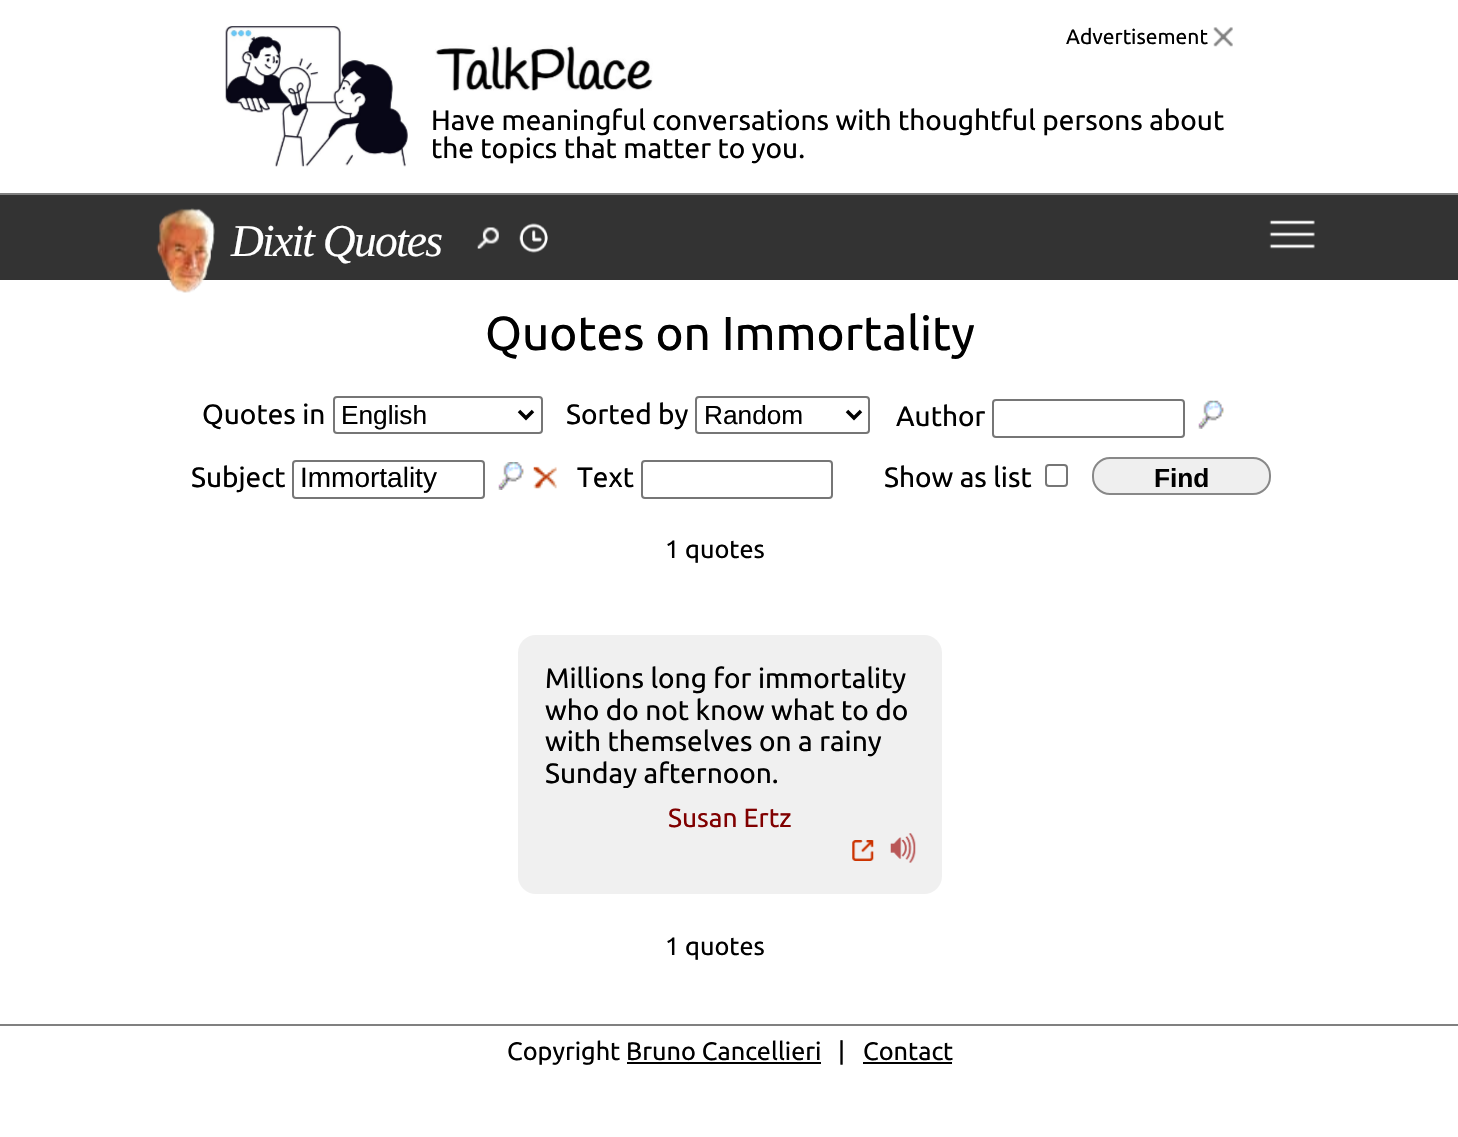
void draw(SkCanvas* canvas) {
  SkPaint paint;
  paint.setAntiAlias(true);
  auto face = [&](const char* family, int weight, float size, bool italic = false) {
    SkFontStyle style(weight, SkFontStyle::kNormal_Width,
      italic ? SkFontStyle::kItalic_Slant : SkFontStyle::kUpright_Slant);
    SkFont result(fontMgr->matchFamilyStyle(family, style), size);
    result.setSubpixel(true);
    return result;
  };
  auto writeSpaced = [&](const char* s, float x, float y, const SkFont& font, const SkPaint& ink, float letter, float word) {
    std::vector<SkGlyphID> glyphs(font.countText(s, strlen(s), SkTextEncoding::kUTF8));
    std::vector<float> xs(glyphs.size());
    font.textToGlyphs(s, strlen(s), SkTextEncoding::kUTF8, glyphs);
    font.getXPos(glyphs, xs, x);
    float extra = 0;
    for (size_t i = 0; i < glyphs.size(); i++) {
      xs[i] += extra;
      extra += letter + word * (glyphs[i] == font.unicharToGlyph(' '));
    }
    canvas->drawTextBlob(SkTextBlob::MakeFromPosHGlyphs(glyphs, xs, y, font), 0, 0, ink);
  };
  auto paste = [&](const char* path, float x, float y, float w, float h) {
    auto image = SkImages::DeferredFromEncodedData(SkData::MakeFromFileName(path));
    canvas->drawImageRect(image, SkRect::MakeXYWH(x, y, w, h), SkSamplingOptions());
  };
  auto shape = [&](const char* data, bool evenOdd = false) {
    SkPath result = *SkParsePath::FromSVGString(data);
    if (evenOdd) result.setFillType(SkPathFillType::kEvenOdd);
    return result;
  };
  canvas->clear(0xffffffff);
  paint.setColor(0xff333333);
  canvas->drawRect(SkRect::MakeXYWH(0, 195, 1458, 85), paint);
  paint.setColor(0xff808080);
  canvas->drawRect(SkRect::MakeXYWH(0, 193, 1458, 2), paint);
  paste("img/1.png", 225, 26, 183, 141);
  paste("img/2.png", 1213, 27, 20, 20);
  paste("img/3.png", 435, 45, 218, 47);
  paste("img/4.png", 156, 208, 59, 85);
  paste("img/5.png", 477, 227, 22, 22);
  paste("img/6.png", 519, 223, 29, 30);
  paste("img/7.png", 1269, 220, 46, 29);
  paint.setStroke(true);
  paint.setStrokeWidth(2);
  paint.setColor(0xff767676);
  canvas->drawRoundRect(SkRect::MakeXYWH(334, 397, 208, 36), 3, 3, paint);
  paint.setStrokeWidth(3.5f);
  paint.setColor(0xff000000);
  canvas->drawPath(shape("M519 411L526 418L533 411"), paint);
  paint.setStrokeWidth(2);
  paint.setColor(0xff767676);
  canvas->drawRoundRect(SkRect::MakeXYWH(696, 397, 173, 36), 3, 3, paint);
  paint.setStrokeWidth(3.5f);
  paint.setColor(0xff000000);
  canvas->drawPath(shape("M847 411L854 418L861 411"), paint);
  paint.setStrokeWidth(2);
  paint.setColor(0xff767676);
  canvas->drawRoundRect(SkRect::MakeXYWH(993, 400, 191, 37), 3, 3, paint);
  paste("img/8.png", 1198, 400, 26, 29);
  canvas->drawRoundRect(SkRect::MakeXYWH(293, 461, 191, 37), 3, 3, paint);
  paste("img/9.png", 498, 462, 26, 28);
  paste("img/10.png", 533, 466, 24, 23);
  canvas->drawRoundRect(SkRect::MakeXYWH(642, 461, 190, 37), 3, 3, paint);
  canvas->drawRoundRect(SkRect::MakeXYWH(1046, 465, 21, 21), 3, 3, paint);
  paint.setStroke(false);
  paint.setColor(0xffefefef);
  canvas->drawRoundRect(SkRect::MakeXYWH(1093, 458, 177, 36), 17, 17, paint);
  paint.setStroke(true);
  paint.setColor(0xff888888);
  canvas->drawRoundRect(SkRect::MakeXYWH(1093, 458, 177, 36), 17, 17, paint);
  paint.setStroke(false);
  paint.setColor(0xfff0f0f0);
  canvas->drawRoundRect(SkRect::MakeXYWH(518, 635, 424, 259), 18, 18, paint);
  paste("img/11.png", 852, 840, 22, 21);
  paste("img/12.png", 890, 833, 26, 30);
  {
    const struct { float x, y, w, h; SkColor color; } items[] = {
      {0, 1024, 1458, 2, 0xff808080},
      {863, 1062, 89, 2, 0xff000000},
      {627, 1062, 194, 2, 0xff000000},
    };
    for (auto [x, y, w, h, color] : items) {
      paint.setColor(color);
      canvas->drawRect(SkRect::MakeXYWH(x, y, w, h), paint);
    }
  }
  auto f0 = face("Ubuntu", 400, 21);
  canvas->drawString("Advertisement", 1066, 44, f0, paint);
  auto f1 = face("Ubuntu", 400, 28);
  canvas->drawString("Have meaningful conversations with thoughtful persons about", 431, 130, f1, paint);
  canvas->drawString("the topics that matter to you.", 431, 158, f1, paint);
  auto f2 = face("Liberation Serif", 400, 45.5f, true);
  paint.setColor(0xffffffff);
  writeSpaced("Dixit Quotes", 231, 256, f2, paint, -1.75f, 0);
  auto f3 = face("Ubuntu", 400, 47.6f);
  paint.setColor(0xff000000);
  canvas->drawString("Quotes on Immortality", 485, 350, f3, paint);
  canvas->drawString("Quotes in", 202, 424, f1, paint);
  auto f4 = face("Liberation Sans", 400, 26.25f);
  canvas->drawString("English", 341, 424, f4, paint);
  canvas->drawString("Sorted by", 566, 424, f1, paint);
  canvas->drawString("Random", 704, 424, f4, paint);
  canvas->drawString("Author", 896, 426, f1, paint);
  canvas->drawString("Subject", 191, 487, f1, paint);
  auto f5 = face("Liberation Sans", 400, 28);
  canvas->drawString("Immortality", 300, 487, f5, paint);
  canvas->drawString("Text", 577, 487, f1, paint);
  canvas->drawString("Show as list", 884, 487, f1, paint);
  auto f6 = face("Liberation Sans", 700, 26.25f);
  canvas->drawString("Find", 1154, 487, f6, paint);
  auto f7 = face("Ubuntu", 400, 25.25f);
  canvas->drawString("1 quotes", 665, 558, f7, paint);
  {
    const struct { const char* s; float x, y; } items[] = {
      {"Millions long for immortality", 545, 688},
      {"who do not know what to do", 545, 720},
      {"with themselves on a rainy", 545, 751},
    };
    for (auto [s, x, y] : items) {
      canvas->drawString(s, x, y, f1, paint);
    }
  }
  canvas->save();
  canvas->clipRect(SkRect::MakeXYWH(544, 662, 371, 126));
  canvas->drawString("Sunday afternoon.", 545, 783, f1, paint);
  canvas->restore();
  auto f8 = face("Ubuntu", 400, 26.25f);
  paint.setColor(0xff800000);
  canvas->drawString("Susan Ertz", 668, 827, f8, paint);
  paint.setColor(0xff000000);
  {
    const struct { const char* s; float x, y; } items[] = {
      {"1 quotes", 665, 955},
      {"Copyright Bruno Cancellieri", 507, 1060},
      {"|", 838, 1060},
      {"Contact", 863, 1060},
    };
    for (auto [s, x, y] : items) {
      canvas->drawString(s, x, y, f7, paint);
    }
  }
}
